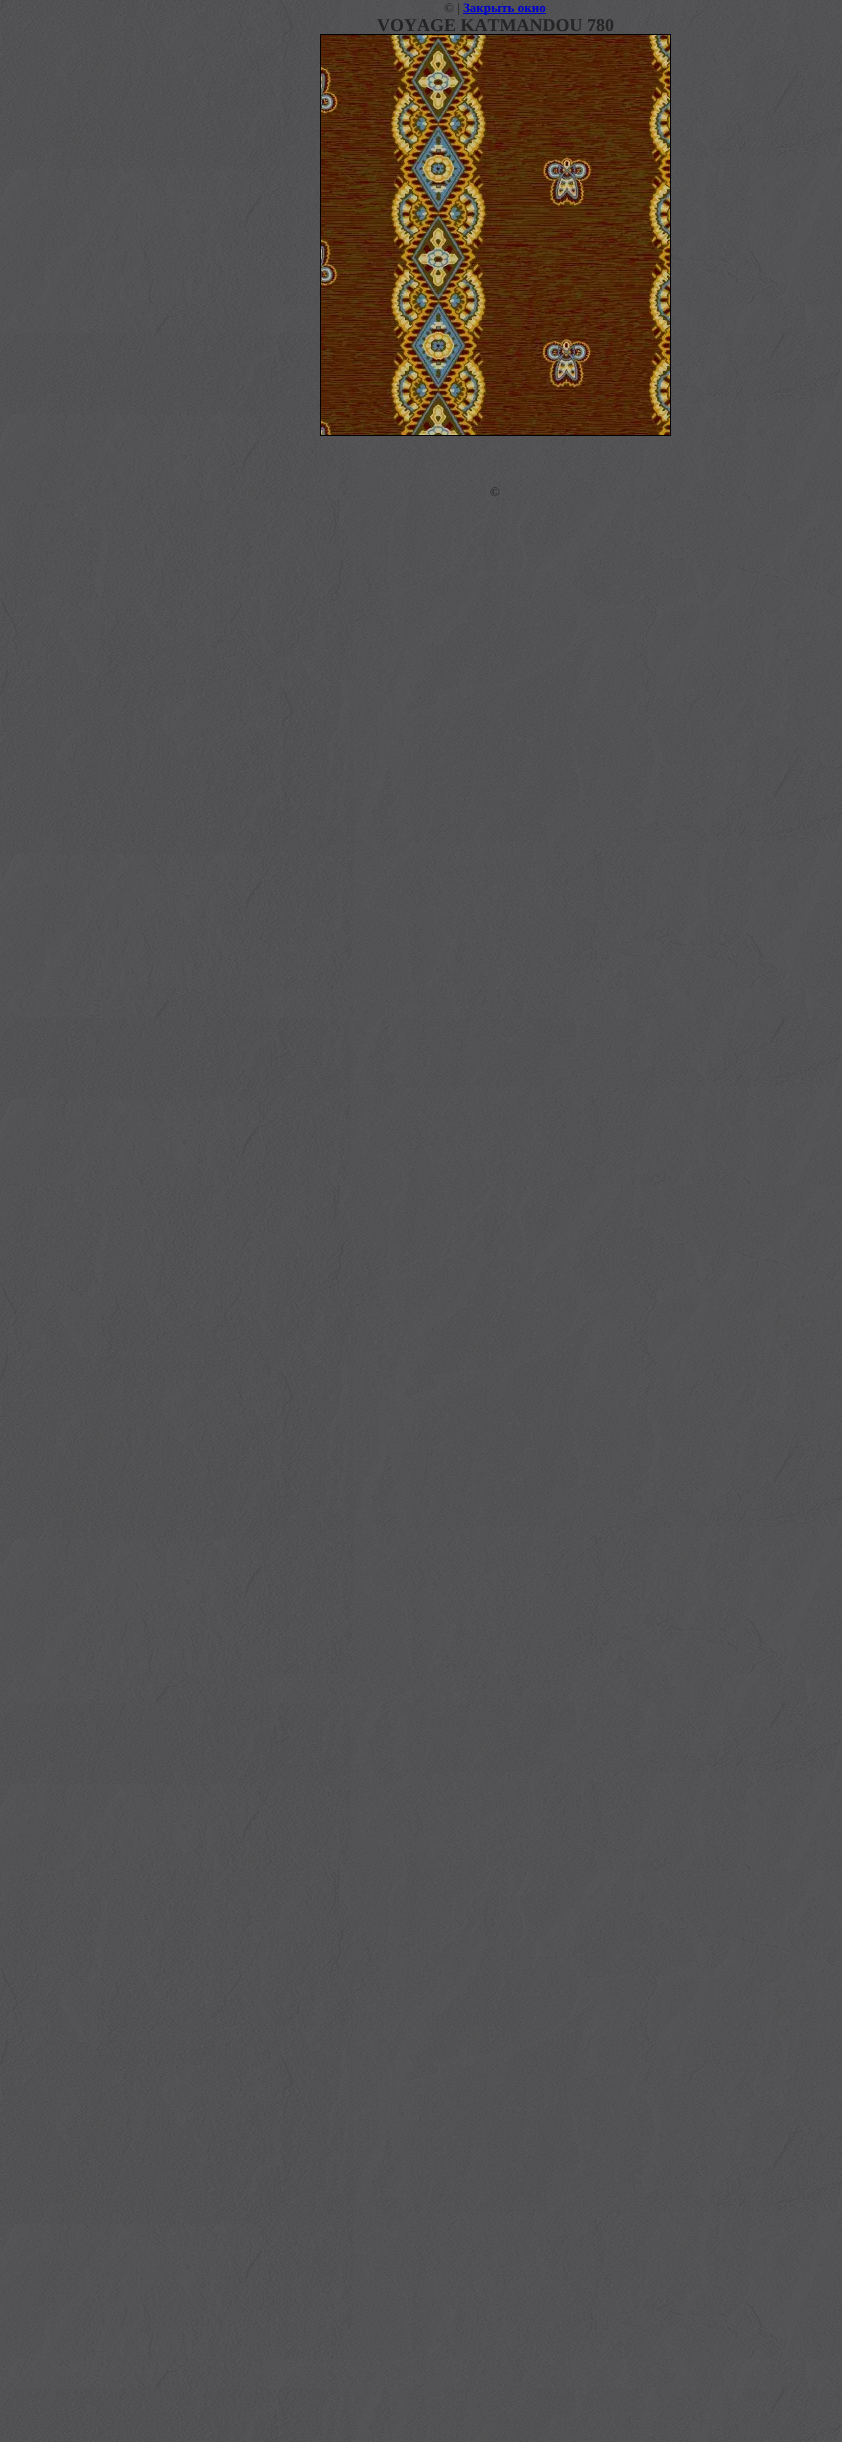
void draw(SkCanvas* canvas) {
  SkPaint paint;
  paint.setAntiAlias(true);
  auto face = [&](const char* family, int weight, float size, bool italic = false) {
    SkFontStyle style(weight, SkFontStyle::kNormal_Width,
      italic ? SkFontStyle::kItalic_Slant : SkFontStyle::kUpright_Slant);
    SkFont result(fontMgr->matchFamilyStyle(family, style), size);
    result.setSubpixel(true);
    return result;
  };
  auto paste = [&](const char* path, float x, float y, float w, float h) {
    auto image = SkImages::DeferredFromEncodedData(SkData::MakeFromFileName(path));
    canvas->drawImageRect(image, SkRect::MakeXYWH(x, y, w, h), SkSamplingOptions());
  };
  canvas->clear(0xffffffff);
  paste("img/1.png", 0, 0, 842, 2442);
  paint.setColor(0xff0000cc);
  canvas->drawRect(SkRect::MakeXYWH(463, 13, 83, 1), paint);
  paint.setStroke(true);
  paint.setStrokeWidth(1);
  paint.setColor(0xff000000);
  canvas->drawRect(SkRect::MakeXYWH(320.5f, 34.5f, 350, 401), paint);
  paste("img/2.png", 321, 35, 349, 400);
  auto f0 = face("Liberation Serif", 400, 13);
  paint.setStroke(false);
  paint.setColor(0xff262525);
  canvas->drawString("© |", 444, 12, f0, paint);
  auto f1 = face("Liberation Serif", 700, 13);
  paint.setColor(0xff0000cc);
  canvas->drawString("Закрыть окно", 463, 12, f1, paint);
  auto f2 = face("Liberation Serif", 700, 18);
  paint.setColor(0xff262525);
  canvas->drawString("VOYAGE KATMANDOU 780", 377, 31, f2, paint);
  canvas->drawString("©", 490, 496, f0, paint);
}
